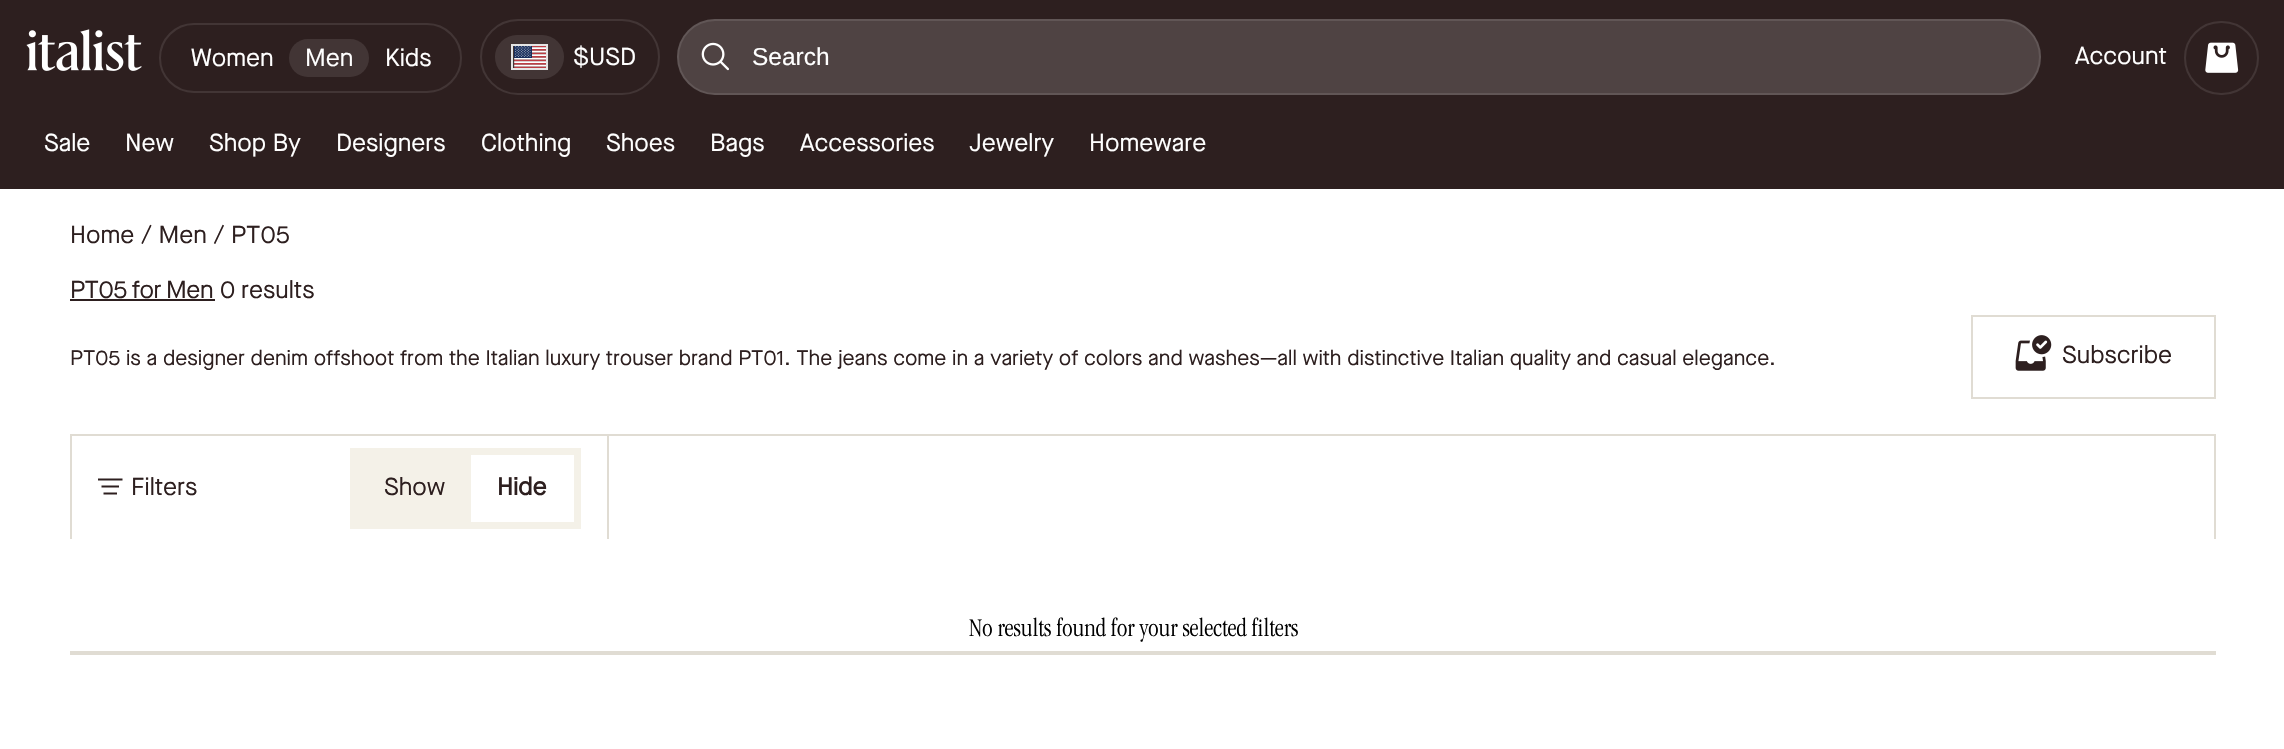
void draw(SkCanvas* canvas) {
  SkPaint paint;
  paint.setAntiAlias(true);
  auto face = [&](const char* family, int weight, float size, bool italic = false) {
    SkFontStyle style(weight, SkFontStyle::kNormal_Width,
      italic ? SkFontStyle::kItalic_Slant : SkFontStyle::kUpright_Slant);
    SkFont result(fontMgr->matchFamilyStyle(family, style), size);
    result.setSubpixel(true);
    return result;
  };
  auto writeSpaced = [&](const char* s, float x, float y, const SkFont& font, const SkPaint& ink, float letter, float word) {
    std::vector<SkGlyphID> glyphs(font.countText(s, strlen(s), SkTextEncoding::kUTF8));
    std::vector<float> xs(glyphs.size());
    font.textToGlyphs(s, strlen(s), SkTextEncoding::kUTF8, glyphs);
    font.getXPos(glyphs, xs, x);
    float extra = 0;
    for (size_t i = 0; i < glyphs.size(); i++) {
      xs[i] += extra;
      extra += letter + word * (glyphs[i] == font.unicharToGlyph(' '));
    }
    canvas->drawTextBlob(SkTextBlob::MakeFromPosHGlyphs(glyphs, xs, y, font), 0, 0, ink);
  };
  auto paste = [&](const char* path, float x, float y, float w, float h) {
    auto image = SkImages::DeferredFromEncodedData(SkData::MakeFromFileName(path));
    canvas->drawImageRect(image, SkRect::MakeXYWH(x, y, w, h), SkSamplingOptions());
  };
  auto shape = [&](const char* data, bool evenOdd = false) {
    SkPath result = *SkParsePath::FromSVGString(data);
    if (evenOdd) result.setFillType(SkPathFillType::kEvenOdd);
    return result;
  };
  canvas->clear(0xffffffff);
  paint.setColor(0xff2d1f1f);
  canvas->drawRect(SkRect::MakeXYWH(0, 0, 2284, 189), paint);
  paste("img/1.png", 26, 29, 116, 42);
  paint.setStroke(true);
  paint.setStrokeWidth(2);
  paint.setColor(0xff423535);
  canvas->drawRoundRect(SkRect::MakeXYWH(160, 24, 301, 68), 34, 34, paint);
  paint.setStroke(false);
  canvas->drawRoundRect(SkRect::MakeXYWH(289, 39, 80, 38), 19, 19, paint);
  paint.setStroke(true);
  canvas->drawRoundRect(SkRect::MakeXYWH(481, 20, 178, 74), 37, 37, paint);
  paint.setStroke(false);
  canvas->drawRoundRect(SkRect::MakeXYWH(495, 35, 69, 44), 22, 22, paint);
  paint.setStroke(true);
  paint.setColor(0xffe5e5e5);
  canvas->drawRect(SkRect::MakeXYWH(512, 45, 35, 24), paint);
  paste("img/2.png", 514, 46, 32, 22);
  paint.setStroke(false);
  paint.setColor(0xff4f4343);
  canvas->drawRoundRect(SkRect::MakeXYWH(677, 19, 1364, 76), 38, 38, paint);
  paint.setStroke(true);
  paint.setColor(0x1affffff);
  canvas->drawRoundRect(SkRect::MakeXYWH(678, 20, 1362, 74), 37, 37, paint);
  paste("img/3.png", 701, 42, 28, 29);
  paint.setColor(0xff423535);
  canvas->drawRoundRect(SkRect::MakeXYWH(2185, 22, 73, 72), 36, 36, paint);
  paste("img/4.png", 2205, 42, 34, 31);
  paint.setStroke(false);
  paint.setColor(0xff2d1f1f);
  canvas->drawRect(SkRect::MakeXYWH(70, 299, 145, 2), paint);
  paint.setStroke(true);
  paint.setColor(0xffe0dcd3);
  canvas->drawRect(SkRect::MakeXYWH(1972, 316, 243, 82), paint);
  paste("img/5.png", 2015, 335, 37, 36);
  paint.setStroke(false);
  canvas->drawRect(SkRect::MakeXYWH(70, 434, 2146, 2), paint);
  canvas->drawRect(SkRect::MakeXYWH(70, 434, 2, 105), paint);
  paint.setStroke(true);
  paint.setStrokeWidth(1.8f);
  paint.setColor(0xff2d1f1f);
  canvas->drawPath(shape("M98 479.5H122.5M101.5 486.5H119M103.5 493.5H117"), paint);
  paint.setStroke(false);
  {
    const struct { float x, y, w, h; SkColor color; } items[] = {
      {350, 448, 231, 81, 0xfff4f1e8},
      {471, 455, 103, 67, 0xffffffff},
      {2214, 434, 2, 105, 0xffe0dcd3},
      {607, 434, 2, 105, 0xffe0dcd3},
      {70, 651, 2146, 4, 0xffe0dcd3},
    };
    for (auto [x, y, w, h, color] : items) {
      paint.setColor(color);
      canvas->drawRect(SkRect::MakeXYWH(x, y, w, h), paint);
    }
  }
  auto f0 = face("Maison Neue", 400, 24.5f);
  paint.setColor(0xffffffff);
  {
    const struct { const char* s; float x, y; } items[] = {
      {"Women", 191, 66},
      {"Men", 305, 66},
      {"Kids", 385, 66},
      {"$USD", 573, 65},
    };
    for (auto [s, x, y] : items) {
      canvas->drawString(s, x, y, f0, paint);
    }
  }
  auto f1 = face("Liberation Sans", 400, 24.5f);
  canvas->drawString("Search", 752, 65, f1, paint);
  {
    const struct { const char* s; float x, y; } items[] = {
      {"Account", 2075, 64},
      {"Sale", 44, 151},
      {"New", 125, 151},
      {"Shop By", 209, 151},
      {"Designers", 336, 151},
      {"Clothing", 481, 151},
      {"Shoes", 606, 151},
      {"Bags", 710, 151},
      {"Accessories", 800, 151},
      {"Jewelry", 969, 151},
      {"Homeware", 1089, 151},
    };
    for (auto [s, x, y] : items) {
      canvas->drawString(s, x, y, f0, paint);
    }
  }
  paint.setColor(0xff2d1f1f);
  canvas->drawString("Home / Men / PT05", 70, 243, f0, paint);
  writeSpaced("PT05 for Men", 70, 298, f0, paint, -0.5f, -1);
  canvas->drawString("0", 220, 298, f0, paint);
  canvas->drawString("results", 241, 298, f0, paint);
  auto f2 = face("Maison Neue", 400, 21);
  canvas->drawString("PT05 is a designer denim offshoot from the Italian luxury trouser brand PT01. The jeans come in a variety of colors and washes—all with distinctive Italian quality and casual elegance.", 70, 365, f2, paint);
  {
    const struct { const char* s; float x, y; } items[] = {
      {"Subscribe", 2062, 363},
      {"Filters", 131, 495},
      {"Show", 384, 495},
    };
    for (auto [s, x, y] : items) {
      canvas->drawString(s, x, y, f0, paint);
    }
  }
  auto f3 = face("Maison Neue", 700, 24.5f);
  canvas->drawString("Hide", 497, 495, f3, paint);
  auto f4 = face("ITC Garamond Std", 300, 26.25f);
  paint.setColor(0xff000000);
  canvas->drawString("No results found for your selected filters", 969, 636, f4, paint);
}
